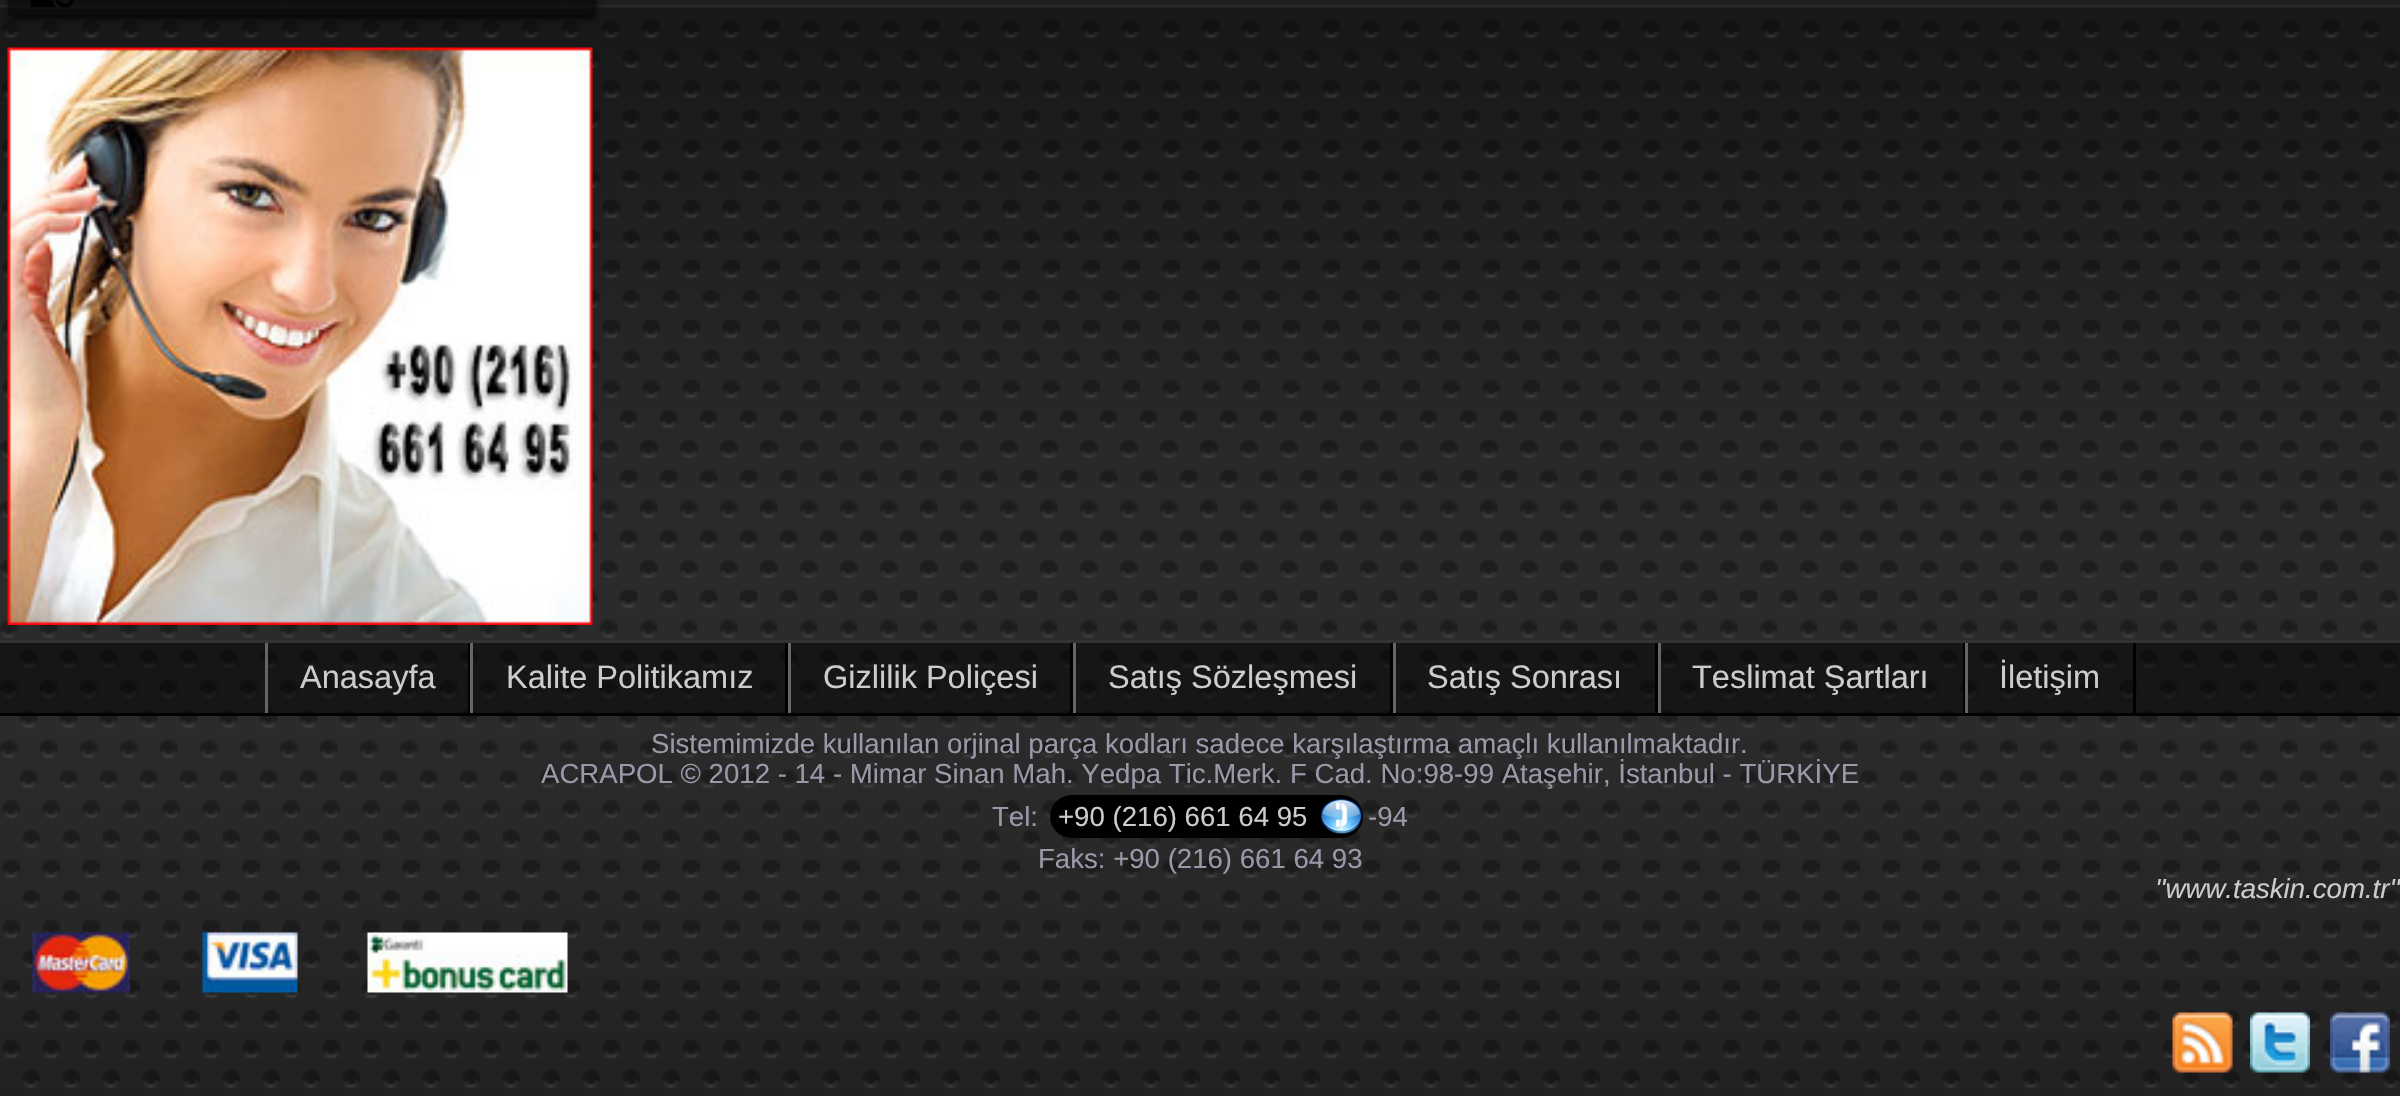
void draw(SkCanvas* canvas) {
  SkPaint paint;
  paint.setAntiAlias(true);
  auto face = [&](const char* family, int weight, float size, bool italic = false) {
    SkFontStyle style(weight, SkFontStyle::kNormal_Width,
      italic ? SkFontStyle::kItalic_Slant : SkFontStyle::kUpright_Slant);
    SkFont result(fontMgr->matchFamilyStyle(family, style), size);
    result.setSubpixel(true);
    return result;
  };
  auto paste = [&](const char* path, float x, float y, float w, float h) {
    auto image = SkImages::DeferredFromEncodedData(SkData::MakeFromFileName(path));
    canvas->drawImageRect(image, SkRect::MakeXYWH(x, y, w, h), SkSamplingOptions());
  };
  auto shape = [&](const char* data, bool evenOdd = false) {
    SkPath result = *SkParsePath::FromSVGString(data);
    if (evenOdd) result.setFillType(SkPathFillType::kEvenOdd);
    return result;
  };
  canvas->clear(0xffffffff);
  paste("img/1.png", 0, 0, 2400, 1096);
  canvas->save();
  canvas->clipPath(shape("M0 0H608V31H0ZM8-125H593V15H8Z", true), true);
  paint.setColor(0xff000000);
  paint.setMaskFilter(SkMaskFilter::MakeBlur(kNormal_SkBlurStyle, 4));
  canvas->drawRect(SkRect::MakeXYWH(10, -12, 585, 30), paint);
  paint.setMaskFilter(nullptr);
  canvas->restore();
  paint.setColor(0x80000000);
  canvas->drawRect(SkRect::MakeXYWH(8, 0, 585, 15), paint);
  paste("img/2.png", 30, 0, 45, 8);
  paste("img/3.png", 7, 47, 586, 578);
  {
    const struct { float x, y, w, h; SkColor color; } items[] = {
      {0, 643, 2400, 70, 0x80000000},
      {0, 640, 2400, 3, 0xff333333},
      {0, 713, 2400, 3, 0xff000000},
      {468, 643, 2, 70, 0xff000000},
      {265, 643, 3, 70, 0xff666666},
      {785, 643, 3, 70, 0xff000000},
      {470, 643, 3, 70, 0xff666666},
      {1070, 643, 3, 70, 0xff000000},
      {788, 643, 3, 70, 0xff666666},
      {1390, 643, 3, 70, 0xff000000},
      {1073, 643, 3, 70, 0xff666666},
      {1655, 643, 3, 70, 0xff000000},
      {1393, 643, 3, 70, 0xff666666},
      {1963, 643, 2, 70, 0xff000000},
      {1658, 643, 3, 70, 0xff666666},
      {2133, 643, 3, 70, 0xff000000},
      {1965, 643, 3, 70, 0xff666666},
    };
    for (auto [x, y, w, h, color] : items) {
      paint.setColor(color);
      canvas->drawRect(SkRect::MakeXYWH(x, y, w, h), paint);
    }
  }
  paint.setColor(0xff000000);
  canvas->drawRoundRect(SkRect::MakeXYWH(1050, 795, 313, 43), 21.5f, 21.5f, paint);
  paste("img/4.png", 1320, 799, 42, 35);
  paste("img/5.png", 32, 932, 98, 61);
  paste("img/6.png", 202, 932, 96, 61);
  paste("img/7.png", 367, 932, 201, 61);
  paste("img/8.png", 2172, 1012, 61, 61);
  paste("img/9.png", 2250, 1012, 60, 61);
  paste("img/10.png", 2330, 1012, 60, 61);
  auto f0 = face("Liberation Sans", 400, 32.5f);
  paint.setColor(0xffcccccc);
  {
    const struct { const char* s; float x, y; } items[] = {
      {"Anasayfa", 300, 688},
      {"Kalite Politikamız", 506, 688},
      {"Gizlilik Poliçesi", 823, 688},
      {"Satış Sözleşmesi", 1108, 688},
      {"Satış Sonrası", 1427, 688},
      {"Teslimat Şartları", 1692, 688},
      {"İletişim", 1999, 688},
    };
    for (auto [s, x, y] : items) {
      canvas->drawString(s, x, y, f0, paint);
    }
  }
  auto f1 = face("Liberation Sans", 400, 27.6f);
  paint.setColor(0xff9999aa);
  {
    const struct { const char* s; float x, y; } items[] = {
      {"Sistemimizde kullanılan orjinal parça kodları sadece karşılaştırma amaçlı kullanılmaktadır.", 651, 753},
      {"ACRAPOL © 2012 - 14 - Mimar Sinan Mah. Yedpa Tic.Merk. F Cad. No:98-99 Ataşehir, İstanbul - TÜRKİYE", 541, 783},
      {"Tel:", 992, 826},
    };
    for (auto [s, x, y] : items) {
      canvas->drawString(s, x, y, f1, paint);
    }
  }
  paint.setColor(0xffcccccc);
  canvas->drawString("+90 (216) 661 64 95", 1058, 826, f1, paint);
  paint.setColor(0xff9999aa);
  canvas->drawString("-94", 1368, 826, f1, paint);
  canvas->drawString("Faks: +90 (216) 661 64 93", 1038, 868, f1, paint);
  auto f2 = face("Liberation Sans", 400, 27.6f, true);
  paint.setColor(0xffcccccc);
  canvas->drawString("''www.taskin.com.tr''", 2155, 898, f2, paint);
}
